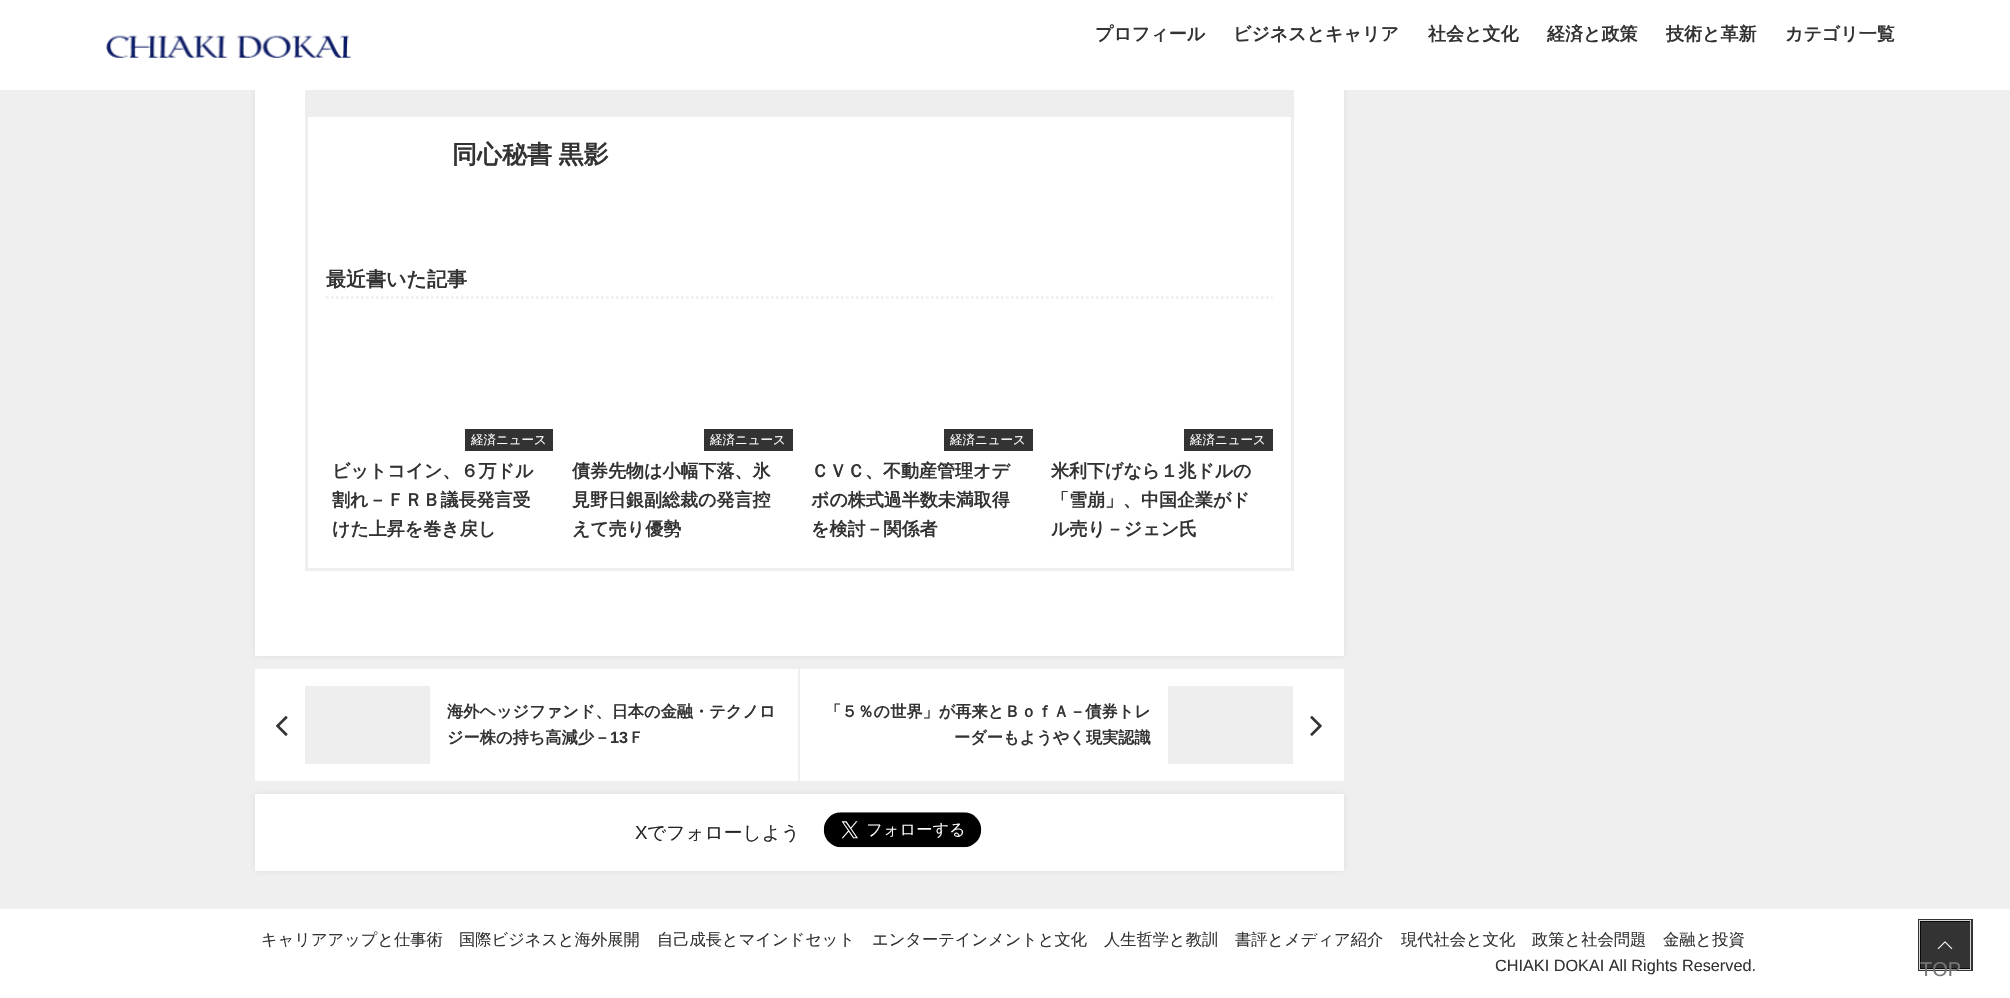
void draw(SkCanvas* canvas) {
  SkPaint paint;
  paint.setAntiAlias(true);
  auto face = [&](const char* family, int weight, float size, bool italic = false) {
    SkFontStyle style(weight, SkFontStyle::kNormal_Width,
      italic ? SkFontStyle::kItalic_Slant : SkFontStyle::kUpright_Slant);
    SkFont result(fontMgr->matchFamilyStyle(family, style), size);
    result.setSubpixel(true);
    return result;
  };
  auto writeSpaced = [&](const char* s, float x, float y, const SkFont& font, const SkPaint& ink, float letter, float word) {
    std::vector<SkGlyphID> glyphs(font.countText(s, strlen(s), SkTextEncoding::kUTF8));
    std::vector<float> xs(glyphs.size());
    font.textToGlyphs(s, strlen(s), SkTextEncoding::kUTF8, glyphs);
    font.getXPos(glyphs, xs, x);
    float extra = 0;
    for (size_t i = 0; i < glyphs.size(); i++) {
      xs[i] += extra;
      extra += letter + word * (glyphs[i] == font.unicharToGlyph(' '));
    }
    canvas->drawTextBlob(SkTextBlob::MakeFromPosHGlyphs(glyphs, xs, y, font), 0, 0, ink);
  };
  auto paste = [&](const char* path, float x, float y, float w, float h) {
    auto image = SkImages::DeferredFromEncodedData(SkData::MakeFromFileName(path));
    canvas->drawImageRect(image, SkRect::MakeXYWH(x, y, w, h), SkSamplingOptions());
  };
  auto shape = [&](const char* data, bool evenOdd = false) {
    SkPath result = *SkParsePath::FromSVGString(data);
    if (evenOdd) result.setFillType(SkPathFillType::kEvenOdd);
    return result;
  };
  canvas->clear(0xffefefef);
  paint.setColor(0x33969696);
  paint.setMaskFilter(SkMaskFilter::MakeBlur(kNormal_SkBlurStyle, 3));
  canvas->drawRect(SkRect::MakeXYWH(255, -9, 1089, 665), paint);
  paint.setMaskFilter(nullptr);
  paint.setColor(0xffffffff);
  canvas->drawRect(SkRect::MakeXYWH(0, 0, 2010, 90), paint);
  paste("img/1.png", 106, 35, 246, 23);
  canvas->drawRect(SkRect::MakeXYWH(255, 90, 1089, 566), paint);
  paint.setColor(0xffeeeeee);
  canvas->drawRect(SkRect::MakeXYWH(305, 90, 989, 24), paint);
  paint.setStroke(true);
  paint.setStrokeWidth(3);
  canvas->drawRect(SkRect::MakeXYWH(306.5f, 115.5f, 986, 454), paint);
  paint.setStrokeWidth(2.5f);
  paint.setPathEffect(SkDashPathEffect::Make({{2.5f, 2.5f}}, 0));
  canvas->drawPath(shape("M326 297.5H1272.5"), paint);
  paint.setPathEffect(nullptr);
  paint.setStroke(false);
  {
    const struct { float x, y, w, h; SkColor color; } items[] = {
      {465, 429, 88, 22, 0xff333333},
      {704, 429, 89, 22, 0xff333333},
      {944, 429, 89, 22, 0xff333333},
      {1184, 429, 89, 22, 0xff333333},
      {255, 669, 543, 112, 0xffffffff},
    };
    for (auto [x, y, w, h, color] : items) {
      paint.setColor(color);
      canvas->drawRect(SkRect::MakeXYWH(x, y, w, h), paint);
    }
  }
  paste("img/2.png", 276, 716, 12, 20);
  {
    const struct { float x, y, w, h; SkColor color; } items[] = {
      {305, 686, 125, 78, 0xffeeeeee},
      {800, 669, 544, 112, 0xffffffff},
      {1168, 686, 125, 78, 0xffeeeeee},
    };
    for (auto [x, y, w, h, color] : items) {
      paint.setColor(color);
      canvas->drawRect(SkRect::MakeXYWH(x, y, w, h), paint);
    }
  }
  paste("img/3.png", 1310, 716, 12, 20);
  paint.setColor(0x33969696);
  paint.setMaskFilter(SkMaskFilter::MakeBlur(kNormal_SkBlurStyle, 3));
  canvas->drawRect(SkRect::MakeXYWH(255, 794, 1089, 77), paint);
  paint.setMaskFilter(nullptr);
  paint.setColor(0xffffffff);
  canvas->drawRect(SkRect::MakeXYWH(255, 794, 1089, 77), paint);
  paste("img/4.png", 823, 812, 159, 36);
  canvas->drawRect(SkRect::MakeXYWH(0, 909, 2010, 89), paint);
  paint.setStroke(true);
  paint.setStrokeWidth(3);
  paint.setColor(0xff333333);
  canvas->drawRect(SkRect::MakeXYWH(1919.5f, 920.5f, 52, 49), paint);
  paint.setStrokeWidth(1);
  paint.setColor(0xffd6d6d6);
  canvas->drawRect(SkRect::MakeXYWH(1919.5f, 920.5f, 51, 49), paint);
  paint.setStroke(false);
  paint.setColor(0xcc000000);
  canvas->drawRect(SkRect::MakeXYWH(1920, 921, 50, 48), paint);
  paste("img/5.png", 1937, 941, 16, 9);
  auto f0 = face("WenQuanYi Zen Hei", 700, 18);
  paint.setColor(0xff333333);
  {
    const struct { const char* s; float x, y; } items[] = {
      {"プロフィール", 1095, 40},
      {"ビジネスとキャリア", 1233, 40},
      {"社会と文化", 1428, 40},
      {"経済と政策", 1547, 40},
      {"技術と革新", 1666, 40},
      {"カテゴリ一覧", 1785, 40},
    };
    for (auto [s, x, y] : items) {
      canvas->drawString(s, x, y, f0, paint);
    }
  }
  auto f1 = face("WenQuanYi Zen Hei", 700, 25);
  writeSpaced("同心秘書 黒影", 452, 163, f1, paint, 0, -1);
  auto f2 = face("WenQuanYi Zen Hei", 700, 20);
  canvas->drawString("最近書いた記事", 326, 286, f2, paint);
  auto f3 = face("WenQuanYi Zen Hei", 500, 12.5f);
  paint.setColor(0xffffffff);
  canvas->drawString("経済ニュース", 471, 444, f3, paint);
  paint.setColor(0xff333333);
  {
    const struct { const char* s; float x, y; } items[] = {
      {"ビットコイン、６万ドル", 332, 477},
      {"割れ－ＦＲＢ議長発言受", 332, 506},
      {"けた上昇を巻き戻し", 332, 535},
    };
    for (auto [s, x, y] : items) {
      canvas->drawString(s, x, y, f0, paint);
    }
  }
  paint.setColor(0xffffffff);
  canvas->drawString("経済ニュース", 710, 444, f3, paint);
  paint.setColor(0xff333333);
  {
    const struct { const char* s; float x, y; } items[] = {
      {"債券先物は小幅下落、氷", 572, 477},
      {"見野日銀副総裁の発言控", 572, 506},
      {"えて売り優勢", 572, 535},
    };
    for (auto [s, x, y] : items) {
      canvas->drawString(s, x, y, f0, paint);
    }
  }
  paint.setColor(0xffffffff);
  canvas->drawString("経済ニュース", 950, 444, f3, paint);
  paint.setColor(0xff333333);
  {
    const struct { const char* s; float x, y; } items[] = {
      {"ＣＶＣ、不動産管理オデ", 811, 477},
      {"ボの株式過半数未満取得", 811, 506},
      {"を検討－関係者", 811, 535},
    };
    for (auto [s, x, y] : items) {
      canvas->drawString(s, x, y, f0, paint);
    }
  }
  paint.setColor(0xffffffff);
  canvas->drawString("経済ニュース", 1190, 444, f3, paint);
  paint.setColor(0xff333333);
  {
    const struct { const char* s; float x, y; } items[] = {
      {"米利下げなら１兆ドルの", 1051, 477},
      {"「雪崩」、中国企業がド", 1051, 506},
      {"ル売り－ジェン氏", 1051, 535},
    };
    for (auto [s, x, y] : items) {
      canvas->drawString(s, x, y, f0, paint);
    }
  }
  auto f4 = face("WenQuanYi Zen Hei", 700, 16.2f);
  canvas->drawString("海外ヘッジファンド、日本の金融・テクノロ", 447, 717, f4, paint);
  canvas->drawString("ジー株の持ち高減少－", 447, 743, f4, paint);
  auto f5 = face("Liberation Sans", 700, 16.2f);
  canvas->drawString("13", 610, 743, f5, paint);
  {
    const struct { const char* s; float x, y; } items[] = {
      {"Ｆ", 628, 743},
      {"「５％の世界」が再来とＢｏｆＡ－債券トレ", 825, 717},
      {"ーダーもようやく現実認識", 954, 743},
    };
    for (auto [s, x, y] : items) {
      canvas->drawString(s, x, y, f4, paint);
    }
  }
  auto f6 = face("Liberation Sans", 400, 18.75f);
  paint.setColor(0xff252525);
  canvas->drawString("X", 635, 839, f6, paint);
  auto f7 = face("WenQuanYi Zen Hei", 500, 18.75f);
  canvas->drawString("でフォローしよう", 647, 839, f7, paint);
  auto f8 = face("WenQuanYi Zen Hei", 500, 16.25f);
  paint.setColor(0xff333333);
  {
    const struct { const char* s; float x, y; } items[] = {
      {"キャリアアップと仕事術", 261, 945},
      {"国際ビジネスと海外展開", 459, 945},
      {"自己成長とマインドセット", 657, 945},
      {"エンターテインメントと文化", 872, 945},
      {"人生哲学と教訓", 1104, 945},
      {"書評とメディア紹介", 1235, 945},
      {"現代社会と文化", 1401, 945},
      {"政策と社会問題", 1532, 945},
      {"金融と投資", 1663, 945},
    };
    for (auto [s, x, y] : items) {
      canvas->drawString(s, x, y, f8, paint);
    }
  }
  auto f9 = face("Liberation Sans", 400, 16.25f);
  canvas->drawString("CHIAKI DOKAI All Rights Reserved.", 1495, 971, f9, paint);
  auto f10 = face("Liberation Sans", 400, 20);
  paint.setColor(0xff767676);
  canvas->drawString("TOP", 1920, 976, f10, paint);
}
